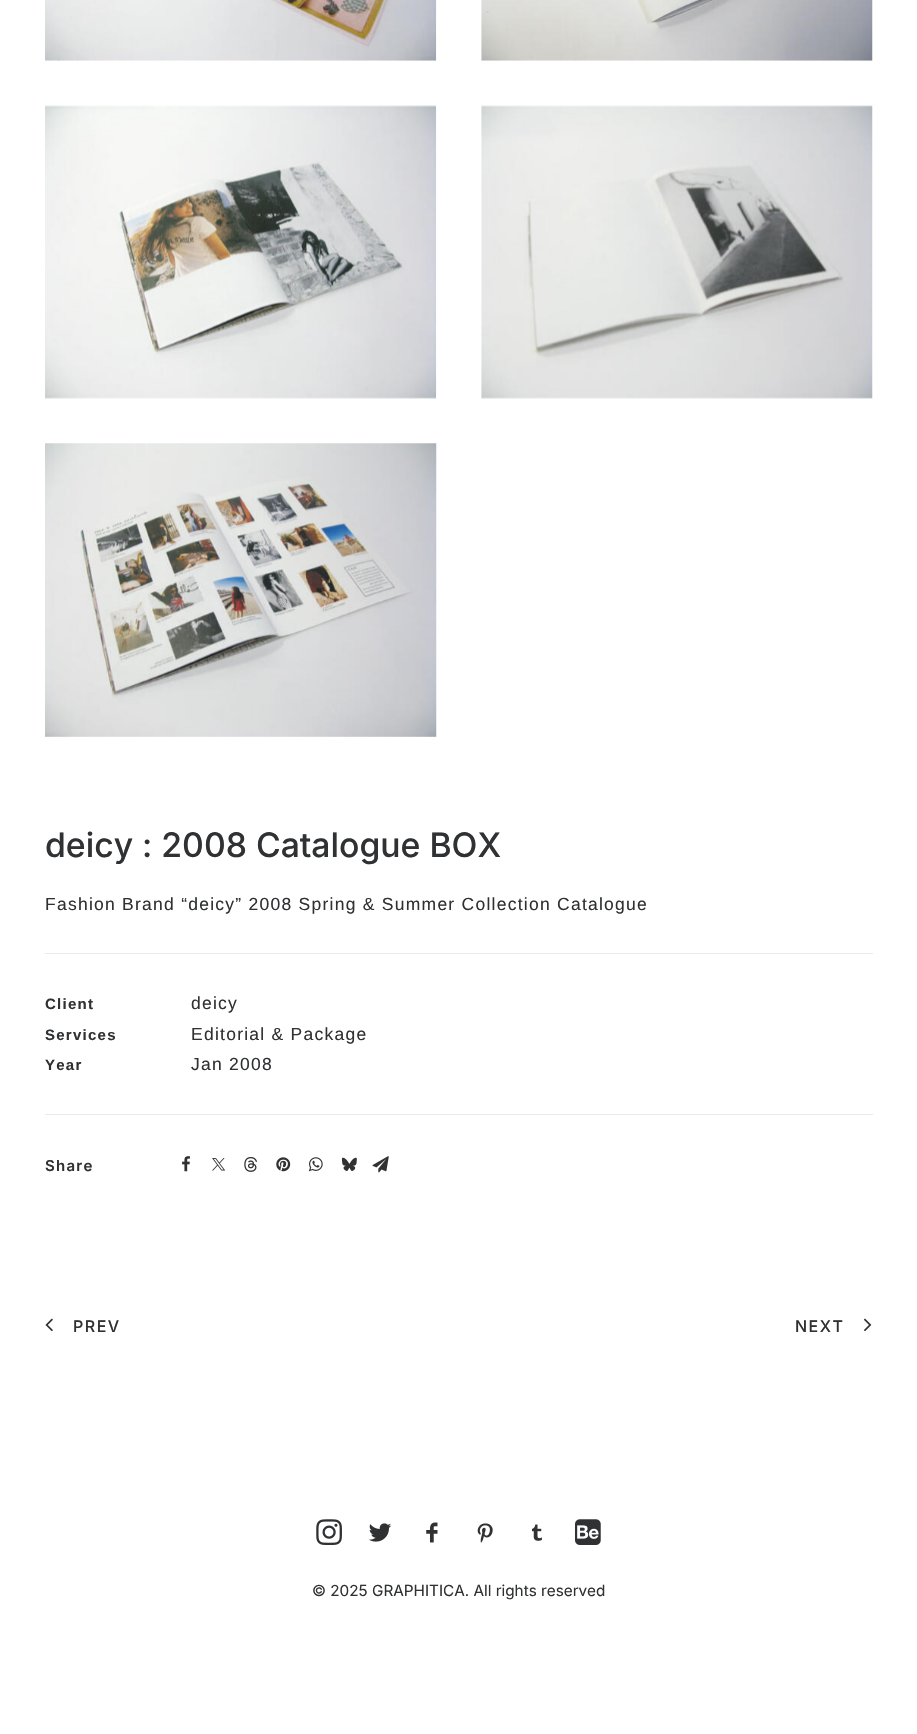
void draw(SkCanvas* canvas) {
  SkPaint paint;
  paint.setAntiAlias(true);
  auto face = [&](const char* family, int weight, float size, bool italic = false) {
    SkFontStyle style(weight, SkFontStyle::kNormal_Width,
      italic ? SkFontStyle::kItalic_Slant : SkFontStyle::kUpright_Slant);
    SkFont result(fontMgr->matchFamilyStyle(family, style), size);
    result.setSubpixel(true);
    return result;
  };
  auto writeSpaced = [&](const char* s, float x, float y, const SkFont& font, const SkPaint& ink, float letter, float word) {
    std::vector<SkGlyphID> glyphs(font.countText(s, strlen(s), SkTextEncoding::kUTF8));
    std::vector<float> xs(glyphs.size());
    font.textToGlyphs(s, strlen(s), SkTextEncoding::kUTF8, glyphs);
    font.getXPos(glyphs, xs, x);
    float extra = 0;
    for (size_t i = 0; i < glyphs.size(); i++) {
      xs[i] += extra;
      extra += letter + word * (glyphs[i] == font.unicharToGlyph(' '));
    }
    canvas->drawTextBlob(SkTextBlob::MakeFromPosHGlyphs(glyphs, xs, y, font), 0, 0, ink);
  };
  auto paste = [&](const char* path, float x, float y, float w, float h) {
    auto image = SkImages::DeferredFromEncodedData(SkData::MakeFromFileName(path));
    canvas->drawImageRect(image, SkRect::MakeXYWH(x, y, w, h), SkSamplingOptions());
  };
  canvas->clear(0xffffffff);
  paste("img/1.png", 45, 0, 392, 61);
  paste("img/2.png", 481, 0, 392, 61);
  paste("img/3.png", 45, 105, 392, 294);
  paste("img/4.png", 481, 105, 392, 294);
  paste("img/5.png", 45, 443, 392, 294);
  paint.setColor(0xffeaeaea);
  canvas->drawRect(SkRect::MakeXYWH(45, 953, 828, 1), paint);
  canvas->drawRect(SkRect::MakeXYWH(45, 1114, 828, 1), paint);
  paste("img/6.png", 182, 1156, 8, 16);
  paste("img/7.png", 212, 1158, 14, 13);
  paste("img/8.png", 244, 1157, 13, 15);
  paste("img/9.png", 276, 1157, 15, 15);
  paste("img/10.png", 308, 1157, 15, 15);
  paste("img/11.png", 341, 1157, 16, 14);
  paste("img/12.png", 372, 1156, 17, 17);
  paste("img/13.png", 45, 1318, 8, 14);
  paste("img/14.png", 863, 1318, 9, 14);
  paste("img/15.png", 316, 1519, 26, 26);
  paste("img/16.png", 369, 1523, 23, 19);
  paste("img/17.png", 426, 1522, 12, 21);
  paste("img/18.png", 477, 1523, 16, 20);
  paste("img/19.png", 532, 1524, 10, 17);
  paste("img/20.png", 575, 1519, 26, 26);
  auto f0 = face("Inter", 500, 33.75f);
  paint.setColor(0xff303133);
  canvas->drawString("deicy : 2008 Catalogue BOX", 45, 857, f0, paint);
  auto f1 = face("Liberation Sans", 400, 17.5f);
  writeSpaced("Fashion Brand “deicy” 2008 Spring & Summer Collection Catalogue", 45, 910, f1, paint, 1.25f, 0);
  auto f2 = face("Liberation Sans", 700, 15);
  writeSpaced("Client", 45, 1009, f2, paint, 1.25f, 0);
  writeSpaced("deicy", 191, 1009, f1, paint, 1.25f, 0);
  writeSpaced("Services", 45, 1040, f2, paint, 1.25f, 0);
  writeSpaced("Editorial & Package", 191, 1040, f1, paint, 1.25f, 0);
  writeSpaced("Year", 45, 1070, f2, paint, 1.25f, 0);
  writeSpaced("Jan 2008", 191, 1070, f1, paint, 1.25f, 0);
  auto f3 = face("Inter", 600, 15);
  writeSpaced("Share", 45, 1171, f3, paint, 1.25f, 0);
  auto f4 = face("Inter", 500, 16);
  writeSpaced("PREV", 73, 1332, f4, paint, 1.5f, 0);
  writeSpaced("NEXT", 795, 1332, f4, paint, 1.5f, 0);
  auto f5 = face("Inter", 400, 15.3f);
  canvas->drawString("© 2025 GRAPHITICA. All rights reserved", 312, 1596, f5, paint);
}
